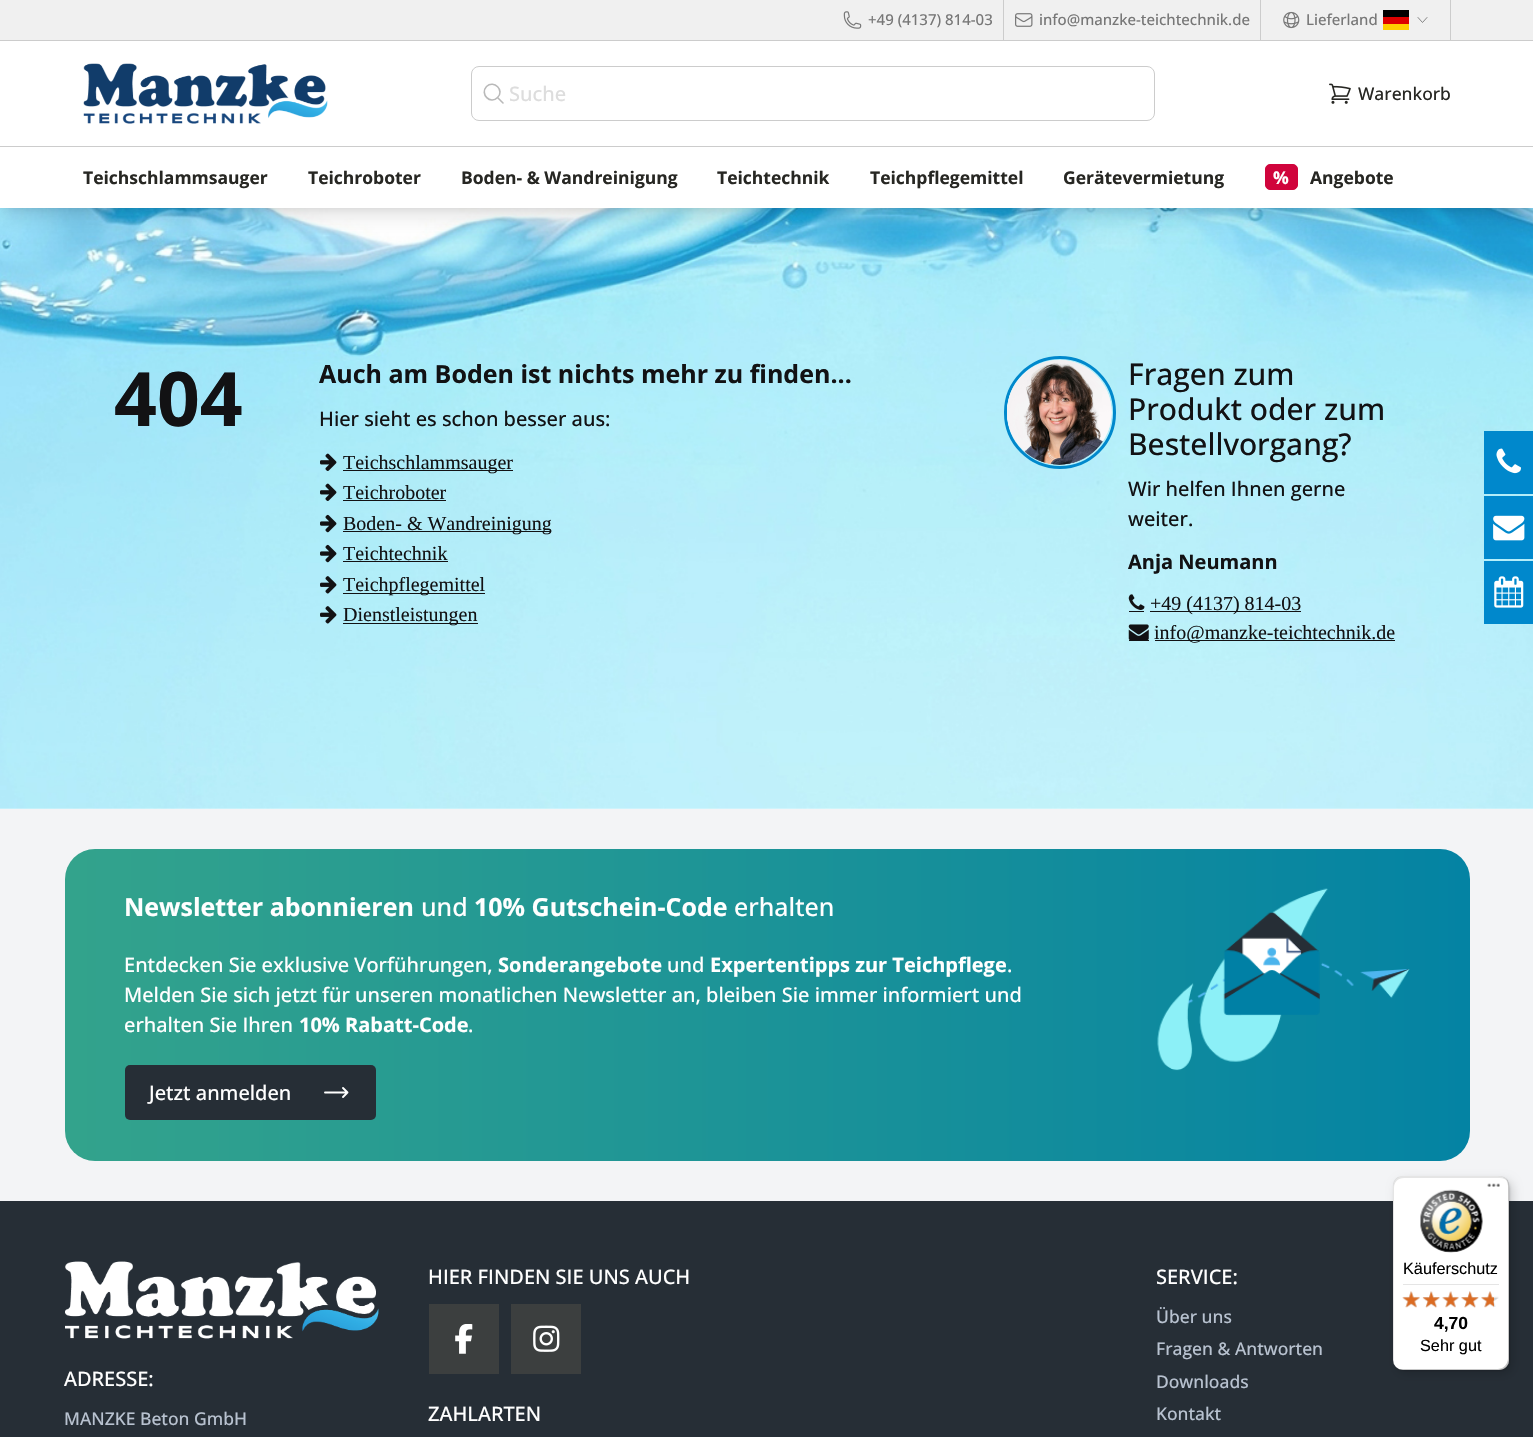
void draw(SkCanvas* canvas) {
  SkPaint paint;
  paint.setAntiAlias(true);
  auto face = [&](const char* family, int weight, float size, bool italic = false) {
    SkFontStyle style(weight, SkFontStyle::kNormal_Width,
      italic ? SkFontStyle::kItalic_Slant : SkFontStyle::kUpright_Slant);
    SkFont result(fontMgr->matchFamilyStyle(family, style), size);
    result.setSubpixel(true);
    return result;
  };
  auto paste = [&](const char* path, float x, float y, float w, float h) {
    auto image = SkImages::DeferredFromEncodedData(SkData::MakeFromFileName(path));
    canvas->drawImageRect(image, SkRect::MakeXYWH(x, y, w, h), SkSamplingOptions());
  };
  auto shape = [&](const char* data, bool evenOdd = false) {
    SkPath result = *SkParsePath::FromSVGString(data);
    if (evenOdd) result.setFillType(SkPathFillType::kEvenOdd);
    return result;
  };
  canvas->clear(0xffffffff);
  paste("img/6.png", 0, 208, 1533, 601);
  paint.setColor(0x1a000000);
  paint.setMaskFilter(SkMaskFilter::MakeBlur(kNormal_SkBlurStyle, 4));
  canvas->drawRect(SkRect::MakeXYWH(5, 10, 1524, 198), paint);
  paint.setMaskFilter(nullptr);
  paint.setMaskFilter(SkMaskFilter::MakeBlur(kNormal_SkBlurStyle, 9.5f));
  canvas->drawRect(SkRect::MakeXYWH(4, 16, 1526, 200), paint);
  paint.setMaskFilter(nullptr);
  {
    const struct { float x, y, w, h; SkColor color; } items[] = {
      {0, 41, 1533, 167, 0xffffffff},
      {0, 0, 1533, 40, 0xfff0f0f0},
      {0, 40, 1533, 1, 0xffcccccc},
      {1003, 0, 1, 40, 0xffcccccc},
    };
    for (auto [x, y, w, h, color] : items) {
      paint.setColor(color);
      canvas->drawRect(SkRect::MakeXYWH(x, y, w, h), paint);
    }
  }
  paste("img/1.png", 843, 11, 19, 18);
  canvas->drawRect(SkRect::MakeXYWH(1260, 0, 1, 40), paint);
  paste("img/2.png", 1015, 13, 18, 14);
  canvas->drawRect(SkRect::MakeXYWH(1450, 0, 1, 40), paint);
  paste("img/3.png", 1283, 11, 17, 18);
  {
    const struct { float x, y, w, h; SkColor color; } items[] = {
      {1383, 24, 26, 6, 0xffffce00},
      {1383, 10, 26, 7, 0xff000000},
      {1383, 17, 26, 7, 0xffdd0000},
    };
    for (auto [x, y, w, h, color] : items) {
      paint.setColor(color);
      canvas->drawRect(SkRect::MakeXYWH(x, y, w, h), paint);
    }
  }
  paint.setStroke(true);
  paint.setStrokeWidth(0.9f);
  paint.setStrokeCap(SkPaint::kRound_Cap);
  paint.setStrokeJoin(SkPaint::kRound_Join);
  paint.setColor(0xff777777);
  canvas->drawPath(shape("M1427 17.5L1422.5 22.5L1418 17.5"), paint);
  paint.setStroke(false);
  paint.setColor(0xffcccccc);
  canvas->drawRect(SkRect::MakeXYWH(0, 146, 1533, 1), paint);
  paste("img/4.png", 83, 63, 245, 61);
  paint.setStroke(true);
  paint.setStrokeWidth(1);
  paint.setStrokeCap(SkPaint::kButt_Cap);
  paint.setStrokeJoin(SkPaint::kMiter_Join);
  canvas->drawRoundRect(SkRect::MakeXYWH(471.5f, 66.5f, 683, 54), 7.5f, 7.5f, paint);
  paint.setStrokeWidth(1.6f);
  paint.setStrokeCap(SkPaint::kRound_Cap);
  paint.setStrokeJoin(SkPaint::kRound_Join);
  paint.setColor(0xffb9b9b9);
  canvas->drawPath(shape("M503 103L497.5 97.5M497.5 97.5C505 90.5 494 79.5 486.5 86.5C479.5 94 490.5 105 497.5 97.5Z"), paint);
  paste("img/5.png", 1329, 83, 22, 21);
  paint.setStroke(false);
  paint.setColor(0xffd0043c);
  canvas->drawRoundRect(SkRect::MakeXYWH(1265.5f, 164.5f, 32, 25), 4.5f, 4.5f, paint);
  paint.setStroke(true);
  paint.setStrokeWidth(1);
  paint.setStrokeCap(SkPaint::kButt_Cap);
  paint.setStrokeJoin(SkPaint::kMiter_Join);
  canvas->drawRoundRect(SkRect::MakeXYWH(1265.5f, 164.5f, 32, 25), 4.5f, 4.5f, paint);
  paste("img/7.png", 320, 453, 17, 18);
  paint.setStroke(false);
  paint.setColor(0xff121214);
  canvas->drawRect(SkRect::MakeXYWH(343, 470, 170, 1), paint);
  paste("img/8.png", 320, 483, 17, 18);
  canvas->drawRect(SkRect::MakeXYWH(343, 500, 103, 1), paint);
  paste("img/9.png", 320, 514, 17, 19);
  canvas->drawRect(SkRect::MakeXYWH(343, 531, 208, 1), paint);
  paste("img/10.png", 320, 544, 17, 19);
  canvas->drawRect(SkRect::MakeXYWH(343, 561, 105, 1), paint);
  paste("img/11.png", 320, 576, 17, 18);
  canvas->drawRect(SkRect::MakeXYWH(343, 593, 142, 1), paint);
  paste("img/12.png", 320, 606, 17, 18);
  canvas->drawRect(SkRect::MakeXYWH(343, 623, 135, 1), paint);
  paint.setStroke(true);
  paint.setStrokeWidth(3);
  paint.setColor(0xff0088cc);
  canvas->drawRoundRect(SkRect::MakeXYWH(1005.5f, 357.5f, 109, 110), 54.5f, 54.5f, paint);
  paste("img/13.png", 1007, 360, 105, 105);
  paste("img/14.png", 1128, 594, 17, 16);
  paint.setStroke(false);
  paint.setColor(0xff121214);
  canvas->drawRect(SkRect::MakeXYWH(1129, 611, 15, 1), paint);
  canvas->drawRect(SkRect::MakeXYWH(1150, 611, 151, 1), paint);
  paste("img/15.png", 1128, 624, 21, 16);
  {
    const struct { float x, y, w, h; SkColor color; } items[] = {
      {1129, 640, 20, 1, 0xff121214},
      {1155, 640, 240, 1, 0xff121214},
      {1484, 431, 49, 63, 0xff0088cc},
    };
    for (auto [x, y, w, h, color] : items) {
      paint.setColor(color);
      canvas->drawRect(SkRect::MakeXYWH(x, y, w, h), paint);
    }
  }
  paste("img/16.png", 1496, 448, 25, 26);
  canvas->drawRect(SkRect::MakeXYWH(1484, 496, 49, 63), paint);
  paste("img/17.png", 1493, 515, 32, 26);
  canvas->drawRect(SkRect::MakeXYWH(1484, 561, 49, 63), paint);
  paste("img/18.png", 1494, 576, 30, 32);
  paint.setColor(0xfff3f4f6);
  canvas->drawRect(SkRect::MakeXYWH(0, 809, 1533, 392), paint);
  {
    const SkColor colors[] = {0xff33a38c, 0xff0483a3};
    const float stops[] = {0, 1};
    const SkPoint ends[] = {{65, 1005}, {1470, 1005}};
    paint.setShader(SkGradientShader::MakeLinear(ends, colors, stops, 2, SkTileMode::kClamp));
    paint.setAlpha(255);
  }
  canvas->drawRoundRect(SkRect::MakeXYWH(65, 849, 1405, 312), 30, 30, paint);
  paint.setShader(nullptr);
  paint.setColor(0xff262e36);
  canvas->drawRoundRect(SkRect::MakeXYWH(125, 1065, 251, 55), 5, 5, paint);
  paint.setStroke(true);
  paint.setStrokeWidth(1.9f);
  paint.setStrokeCap(SkPaint::kRound_Cap);
  paint.setStrokeJoin(SkPaint::kRound_Join);
  paint.setColor(0xffffffff);
  canvas->drawPath(shape("M343 1088L347.5 1092.5M347.5 1092.5L343 1097M347.5 1092.5H325"), paint);
  paste("img/19.png", 1157, 888, 253, 183);
  paint.setStroke(false);
  paint.setColor(0xff262e36);
  canvas->drawRect(SkRect::MakeXYWH(0, 1201, 1533, 236), paint);
  paste("img/20.png", 65, 1261, 314, 78);
  paint.setColor(0xff3c3f3f);
  canvas->drawRect(SkRect::MakeXYWH(429, 1304, 70, 70), paint);
  paste("img/21.png", 455, 1324, 18, 30);
  canvas->drawRect(SkRect::MakeXYWH(511, 1304, 70, 70), paint);
  paste("img/22.png", 533, 1325, 27, 27);
  paint.setColor(0x26000000);
  paint.setMaskFilter(SkMaskFilter::MakeBlur(kNormal_SkBlurStyle, 5));
  canvas->drawRoundRect(SkRect::MakeXYWH(1396, 1180, 117, 194), 10, 10, paint);
  paint.setMaskFilter(nullptr);
  paint.setMaskFilter(SkMaskFilter::MakeBlur(kNormal_SkBlurStyle, 1));
  canvas->drawRoundRect(SkRect::MakeXYWH(1394, 1178, 116, 193), 10, 10, paint);
  paint.setMaskFilter(nullptr);
  paint.setColor(0xffffffff);
  canvas->drawRoundRect(SkRect::MakeXYWH(1393, 1176, 116, 194), 10, 10, paint);
  paint.setColor(0x1a000000);
  canvas->drawPath(shape("M1404 1178H1500C1503 1178 1506 1179 1508 1182C1506 1178 1503 1176 1499 1176H1403C1397 1176 1393 1180 1393 1186V1360C1393 1362 1394 1365 1395 1366C1394 1365 1394 1363 1394 1361V1188C1394 1182 1398 1178 1404 1178Z"), paint);
  paint.setColor(0x33000000);
  canvas->drawPath(shape("M1397 1368C1399 1369 1401 1370 1403 1370H1499C1505 1370 1509 1366 1509 1360V1186C1509 1183 1508 1180 1506 1178C1507 1180 1508 1182 1508 1185V1359C1508 1364 1503 1369 1498 1369H1401C1400 1369 1398 1369 1397 1368Z"), paint);
  paint.setColor(0x33323232);
  canvas->drawPath(shape("M1397 1368C1398 1369 1401 1370 1403 1370H1499C1505 1370 1509 1366 1509 1360V1186C1509 1180 1505 1176 1499 1176H1498C1504 1176 1508 1180 1508 1186V1359C1508 1365 1504 1369 1498 1369H1402C1400 1369 1398 1369 1397 1368Z"), paint);
  paint.setColor(0x4dffffff);
  canvas->drawPath(shape("M1397 1368C1398 1369 1401 1370 1403 1370H1499C1505 1370 1509 1366 1509 1360V1186C1509 1180 1505 1176 1499 1176H1498C1504 1176 1508 1180 1508 1186V1359C1508 1365 1504 1369 1498 1369H1402C1400 1369 1398 1369 1397 1368Z"), paint);
  paste("img/23.png", 1487, 1183, 13, 4);
  paste("img/24.png", 1420, 1189, 63, 64);
  paint.setColor(0xffe5e5e5);
  canvas->drawRect(SkRect::MakeXYWH(1403, 1284, 96, 1), paint);
  paste("img/30.png", 1403, 1291, 17, 16);
  paste("img/25.png", 1402, 1291, 18, 17);
  paste("img/31.png", 1423, 1291, 17, 17);
  paste("img/26.png", 1422, 1291, 18, 17);
  paste("img/32.png", 1442, 1291, 17, 16);
  paste("img/27.png", 1442, 1291, 17, 17);
  paste("img/33.png", 1461, 1291, 18, 17);
  paste("img/28.png", 1461, 1291, 18, 17);
  paste("img/34.png", 1481, 1291, 18, 16);
  paste("img/29.png", 1481, 1291, 13, 17);
  auto f0 = face("Open Sans", 500, 15);
  paint.setColor(0xff777777);
  {
    const struct { const char* s; float x, y; } items[] = {
      {"+49 (4137) 814-03", 868, 25},
      {"info@manzke-teichtechnik.de", 1039, 25},
      {"Lieferland", 1306, 25},
    };
    for (auto [s, x, y] : items) {
      canvas->drawString(s, x, y, f0, paint);
    }
  }
  auto f1 = face("Open Sans", 500, 20);
  paint.setColor(0xffdddddd);
  canvas->drawString("Suche", 509, 101, f1, paint);
  auto f2 = face("Open Sans", 500, 17.5f);
  paint.setColor(0xff272723);
  canvas->drawString("Warenkorb", 1358, 100, f2, paint);
  auto f3 = face("Open Sans", 700, 17.5f);
  {
    const struct { const char* s; float x, y; } items[] = {
      {"Teichschlammsauger", 83, 184},
      {"Teichroboter", 308, 184},
      {"Boden- & Wandreinigung", 461, 184},
      {"Teichtechnik", 717, 184},
      {"Teichpflegemittel", 870, 184},
      {"Gerätevermietung", 1063, 184},
    };
    for (auto [s, x, y] : items) {
      canvas->drawString(s, x, y, f3, paint);
    }
  }
  paint.setColor(0xffffffff);
  canvas->drawString("%", 1273, 184, f3, paint);
  paint.setColor(0xff272723);
  canvas->drawString("Angebote", 1310, 184, f3, paint);
  auto f4 = face("Open Sans", 700, 75);
  paint.setColor(0xff121214);
  canvas->drawString("404", 114, 426, f4, paint);
  auto f5 = face("Open Sans", 700, 25);
  canvas->drawString("Auch am Boden ist nichts mehr zu finden...", 319, 383, f5, paint);
  canvas->drawString("Hier sieht es schon besser aus:", 319, 426, f1, paint);
  auto f6 = face("Liberation Serif", 400, 20);
  {
    const struct { const char* s; float x, y; } items[] = {
      {"Teichschlammsauger", 343, 469},
      {"Teichroboter", 343, 499},
      {"Boden- & Wandreinigung", 343, 530},
      {"Teichtechnik", 343, 560},
      {"Teichpflegemittel", 343, 591},
      {"Dienstleistungen", 343, 621},
    };
    for (auto [s, x, y] : items) {
      canvas->drawString(s, x, y, f6, paint);
    }
  }
  auto f7 = face("Open Sans", 500, 30);
  {
    const struct { const char* s; float x, y; } items[] = {
      {"Fragen zum", 1128, 385},
      {"Produkt oder zum", 1128, 420},
      {"Bestellvorgang?", 1128, 455},
    };
    for (auto [s, x, y] : items) {
      canvas->drawString(s, x, y, f7, paint);
    }
  }
  canvas->drawString("Wir helfen Ihnen gerne", 1128, 496, f1, paint);
  canvas->drawString("weiter.", 1128, 526, f1, paint);
  auto f8 = face("Open Sans", 700, 20);
  canvas->drawString("Anja Neumann", 1128, 569, f8, paint);
  canvas->drawString("+49 (4137) 814-03", 1150, 610, f6, paint);
  canvas->drawString("info@manzke-teichtechnik.de", 1154, 639, f6, paint);
  paint.setColor(0xffffffff);
  canvas->drawString("Newsletter abonnieren", 124, 916, f5, paint);
  auto f9 = face("Open Sans", 500, 25);
  canvas->drawString("und", 421, 916, f9, paint);
  canvas->drawString("10% Gutschein-Code", 474, 916, f5, paint);
  canvas->drawString("erhalten", 734, 916, f9, paint);
  canvas->drawString("Entdecken Sie exklusive Vorführungen,", 124, 972, f1, paint);
  canvas->drawString("Sonderangebote", 498, 972, f8, paint);
  canvas->drawString("und", 667, 972, f1, paint);
  canvas->drawString("Expertentipps zur Teichpflege", 710, 972, f8, paint);
  {
    const struct { const char* s; float x, y; } items[] = {
      {".", 1007, 972},
      {"Melden Sie sich jetzt für unseren monatlichen Newsletter an, bleiben Sie immer informiert und", 124, 1002},
      {"erhalten Sie Ihren", 124, 1032},
    };
    for (auto [s, x, y] : items) {
      canvas->drawString(s, x, y, f1, paint);
    }
  }
  canvas->drawString("10% Rabatt-Code", 299, 1032, f8, paint);
  {
    const struct { const char* s; float x, y; } items[] = {
      {".", 468, 1032},
      {"Jetzt anmelden", 149, 1100},
      {"ADRESSE:", 64, 1386},
    };
    for (auto [s, x, y] : items) {
      canvas->drawString(s, x, y, f1, paint);
    }
  }
  paint.setColor(0xffb8c2d0);
  canvas->drawString("MANZKE Beton GmbH", 64, 1425, f2, paint);
  paint.setColor(0xffffffff);
  {
    const struct { const char* s; float x, y; } items[] = {
      {"HIER FINDEN SIE UNS AUCH", 428, 1284},
      {"ZAHLARTEN", 428, 1421},
      {"SERVICE:", 1156, 1284},
    };
    for (auto [s, x, y] : items) {
      canvas->drawString(s, x, y, f1, paint);
    }
  }
  paint.setColor(0xffb8c2d0);
  {
    const struct { const char* s; float x, y; } items[] = {
      {"Über uns", 1156, 1323},
      {"Fragen & Antworten", 1156, 1355},
      {"Downloads", 1156, 1388},
      {"Kontakt", 1156, 1420},
    };
    for (auto [s, x, y] : items) {
      canvas->drawString(s, x, y, f2, paint);
    }
  }
  auto f10 = face("Liberation Sans", 400, 16.25f);
  paint.setColor(0xff000000);
  canvas->drawString("Käuferschutz", 1403, 1274, f10, paint);
  auto f11 = face("Liberation Sans", 700, 17.5f);
  canvas->drawString("4,70", 1434, 1329, f11, paint);
  canvas->drawString("Sehr gut", 1420, 1351, f10, paint);
}
